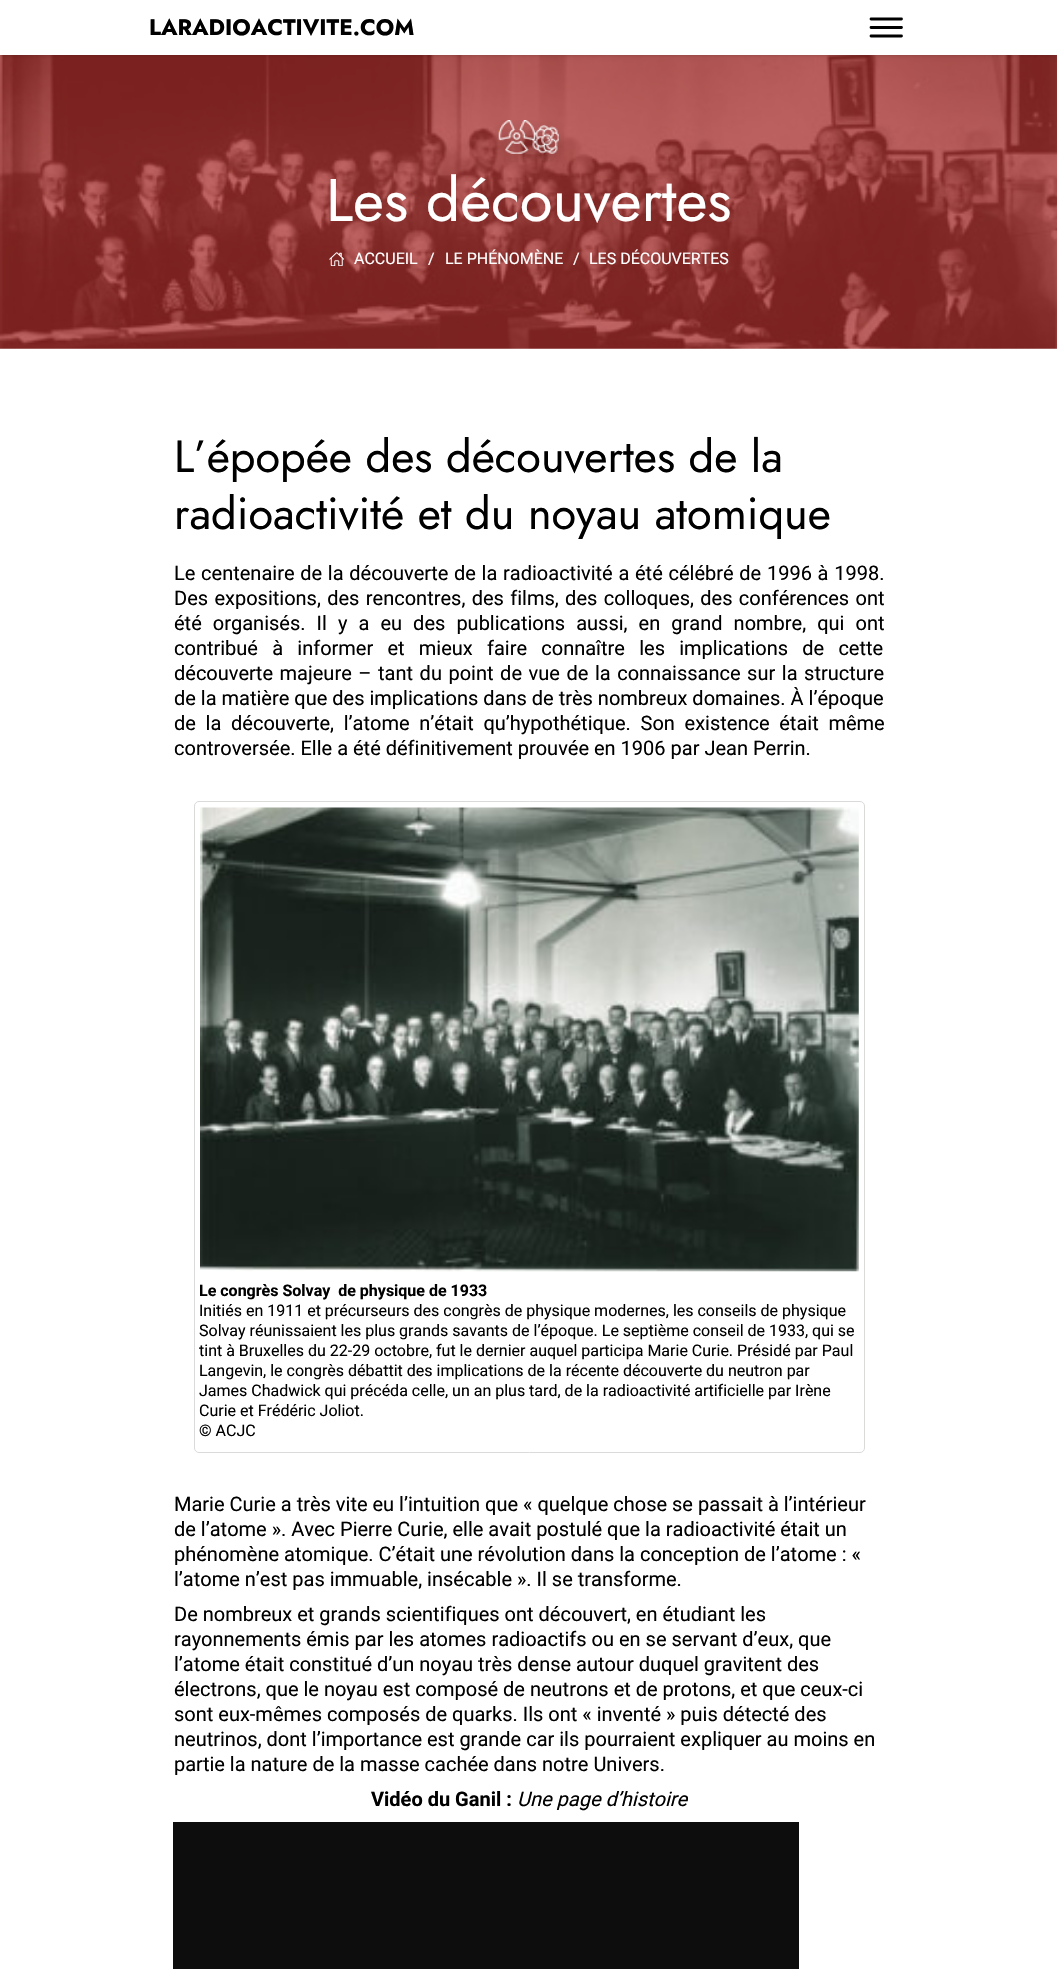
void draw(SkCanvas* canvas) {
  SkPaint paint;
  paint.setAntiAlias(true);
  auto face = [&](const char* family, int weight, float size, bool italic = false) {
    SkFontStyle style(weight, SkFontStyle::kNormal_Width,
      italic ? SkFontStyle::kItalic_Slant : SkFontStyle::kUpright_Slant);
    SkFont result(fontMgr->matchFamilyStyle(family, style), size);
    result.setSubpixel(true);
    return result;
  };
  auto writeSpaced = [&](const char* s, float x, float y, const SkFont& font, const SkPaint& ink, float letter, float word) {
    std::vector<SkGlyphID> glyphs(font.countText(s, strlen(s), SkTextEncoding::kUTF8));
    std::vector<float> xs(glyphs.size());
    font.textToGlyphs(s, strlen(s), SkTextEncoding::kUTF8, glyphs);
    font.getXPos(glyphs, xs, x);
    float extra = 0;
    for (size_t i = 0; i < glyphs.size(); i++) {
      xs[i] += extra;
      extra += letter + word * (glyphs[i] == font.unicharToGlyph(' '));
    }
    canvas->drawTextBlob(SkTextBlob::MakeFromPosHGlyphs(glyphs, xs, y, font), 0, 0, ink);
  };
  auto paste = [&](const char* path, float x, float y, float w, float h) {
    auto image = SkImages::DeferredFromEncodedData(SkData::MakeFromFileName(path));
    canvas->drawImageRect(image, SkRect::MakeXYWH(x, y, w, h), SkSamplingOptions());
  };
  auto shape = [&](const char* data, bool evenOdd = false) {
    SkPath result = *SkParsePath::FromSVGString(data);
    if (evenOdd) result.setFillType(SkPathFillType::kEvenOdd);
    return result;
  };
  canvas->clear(0xffffffff);
  paste("img/1.png", 0, 55, 1057, 294);
  paint.setColor(0x1a000000);
  paint.setMaskFilter(SkMaskFilter::MakeBlur(kNormal_SkBlurStyle, 1));
  canvas->drawRect(SkRect::MakeXYWH(1, 3, 1055, 52), paint);
  paint.setMaskFilter(nullptr);
  paint.setMaskFilter(SkMaskFilter::MakeBlur(kNormal_SkBlurStyle, 2));
  canvas->drawRect(SkRect::MakeXYWH(0, 1, 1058, 55), paint);
  paint.setMaskFilter(nullptr);
  paint.setColor(0xffffffff);
  canvas->drawRect(SkRect::MakeXYWH(0, 0, 1057, 55), paint);
  paint.setStroke(true);
  paint.setStrokeWidth(2.8f);
  paint.setStrokeCap(SkPaint::kRound_Cap);
  paint.setColor(0xff000000);
  canvas->drawPath(shape("M871 19H901.5M871 27.5H901.5M871 36H901.5"), paint);
  paste("img/2.png", 495, 120, 69, 42);
  paste("img/3.png", 329, 252, 15, 14);
  paint.setStrokeWidth(1);
  paint.setStrokeCap(SkPaint::kButt_Cap);
  paint.setColor(0xffdadad8);
  canvas->drawRoundRect(SkRect::MakeXYWH(194.5f, 801.5f, 670, 651), 4.5f, 4.5f, paint);
  paste("img/4.png", 200, 807, 659, 465);
  paint.setStroke(false);
  paint.setColor(0xff0d0d0d);
  canvas->drawRect(SkRect::MakeXYWH(173, 1822, 626, 147), paint);
  auto f0 = face("Jost", 700, 22.5f);
  paint.setColor(0xff000000);
  canvas->drawString("LARADIOACTIVITE.COM", 149, 35, f0, paint);
  auto f1 = face("Jost", 400, 60);
  paint.setColor(0xffffffff);
  canvas->drawString("Les découvertes", 326, 221, f1, paint);
  auto f2 = face("Roboto", 400, 16);
  {
    const struct { const char* s; float x, y; } items[] = {
      {"ACCUEIL", 354, 264},
      {"/", 428, 264},
      {"LE PHÉNOMÈNE", 445, 264},
      {"/", 573, 264},
      {"LES DÉCOUVERTES", 589, 264},
    };
    for (auto [s, x, y] : items) {
      canvas->drawString(s, x, y, f2, paint);
    }
  }
  auto f3 = face("Jost", 400, 45);
  paint.setColor(0xff000000);
  canvas->drawString("L’épopée des découvertes de la", 174, 472, f3, paint);
  canvas->drawString("radioactivité et du noyau atomique", 174, 529, f3, paint);
  auto f4 = face("Roboto", 400, 20);
  writeSpaced("Le centenaire de la découverte de la radioactivité a été célébré de 1996 à 1998.", 174, 580, f4, paint, 0, 0.75f);
  writeSpaced("Des expositions, des rencontres, des films, des colloques, des conférences ont", 174, 605, f4, paint, 0, 1.4f);
  writeSpaced("été organisés. Il y a eu des publications aussi, en grand nombre, qui ont", 174, 630, f4, paint, 0, 6.1f);
  writeSpaced("contribué à informer et mieux faire connaître les implications de cette", 174, 655, f4, paint, 0, 9.25f);
  writeSpaced("découverte majeure – tant du point de vue de la connaissance sur la structure", 174, 680, f4, paint, 0, 1.6f);
  canvas->drawString("de la matière que des implications dans de très nombreux domaines. À l’époque", 174, 705, f4, paint);
  writeSpaced("de la découverte, l’atome n’était qu’hypothétique. Son existence était même", 174, 730, f4, paint, 0, 4.75f);
  canvas->drawString("controversée. Elle a été définitivement prouvée en 1906 par Jean Perrin.", 174, 755, f4, paint);
  auto f5 = face("Roboto", 700, 16);
  canvas->drawString("Le congrès Solvay  de physique de 1933", 199, 1296, f5, paint);
  {
    const struct { const char* s; float x, y; } items[] = {
      {"Initiés en 1911 et précurseurs des congrès de physique modernes, les conseils de physique", 199, 1316},
      {"Solvay réunissaient les plus grands savants de l’époque. Le septième conseil de 1933, qui se", 199, 1336},
      {"tint à Bruxelles du 22-29 octobre, fut le dernier auquel participa Marie Curie. Présidé par Paul", 199, 1356},
      {"Langevin, le congrès débattit des implications de la récente découverte du neutron par", 199, 1376},
      {"James Chadwick qui précéda celle, un an plus tard, de la radioactivité artificielle par Irène", 199, 1396},
      {"Curie et Frédéric Joliot.", 199, 1416},
      {"© ACJC", 199, 1436},
    };
    for (auto [s, x, y] : items) {
      canvas->drawString(s, x, y, f2, paint);
    }
  }
  {
    const struct { const char* s; float x, y; } items[] = {
      {"Marie Curie a très vite eu l’intuition que « quelque chose se passait à l’intérieur", 174, 1511},
      {"de l’atome ». Avec Pierre Curie, elle avait postulé que la radioactivité était un", 174, 1536},
      {"phénomène atomique. C’était une révolution dans la conception de l’atome : «", 174, 1561},
      {"l’atome n’est pas immuable, insécable ». Il se transforme.", 174, 1586},
      {"De nombreux et grands scientifiques ont découvert, en étudiant les", 174, 1621},
      {"rayonnements émis par les atomes radioactifs ou en se servant d’eux, que", 174, 1646},
      {"l’atome était constitué d’un noyau très dense autour duquel gravitent des", 174, 1671},
      {"électrons, que le noyau est composé de neutrons et de protons, et que ceux-ci", 174, 1696},
      {"sont eux-mêmes composés de quarks. Ils ont « inventé » puis détecté des", 174, 1721},
      {"neutrinos, dont l’importance est grande car ils pourraient expliquer au moins en", 174, 1746},
      {"partie la nature de la masse cachée dans notre Univers.", 174, 1771},
    };
    for (auto [s, x, y] : items) {
      canvas->drawString(s, x, y, f4, paint);
    }
  }
  auto f6 = face("Roboto", 700, 20);
  canvas->drawString("Vidéo du Ganil :", 371, 1806, f6, paint);
  auto f7 = face("Roboto", 400, 20, true);
  canvas->drawString("Une page d’histoire", 517, 1806, f7, paint);
}
